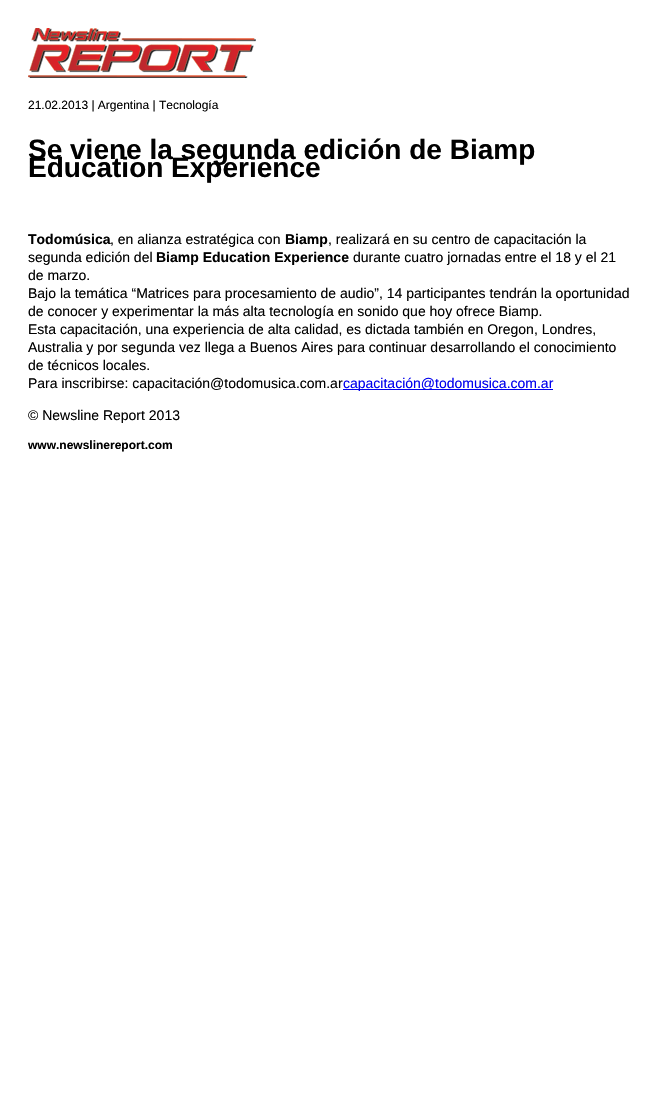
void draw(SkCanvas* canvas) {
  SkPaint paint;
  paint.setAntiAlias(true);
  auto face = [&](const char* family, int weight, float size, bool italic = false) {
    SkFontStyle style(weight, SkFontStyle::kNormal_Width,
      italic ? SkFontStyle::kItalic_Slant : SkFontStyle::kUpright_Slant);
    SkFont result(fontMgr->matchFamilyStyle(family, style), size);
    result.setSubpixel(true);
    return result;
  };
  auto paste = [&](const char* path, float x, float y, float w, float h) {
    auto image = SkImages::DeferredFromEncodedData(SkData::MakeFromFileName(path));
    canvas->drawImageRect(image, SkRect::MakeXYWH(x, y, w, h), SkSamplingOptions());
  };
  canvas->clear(0xffffffff);
  paste("img/1.png", 28, 28, 228, 50);
  paint.setColor(0xff0000ee);
  canvas->drawRect(SkRect::MakeXYWH(343, 389, 210, 1), paint);
  auto f0 = face("Liberation Sans", 400, 12);
  paint.setColor(0xff000000);
  canvas->drawString("21.02.2013 | Argentina | Tecnología", 28, 109, f0, paint);
  auto f1 = face("Liberation Sans", 700, 28);
  canvas->drawString("Se viene la segunda edición de Biamp", 28, 159, f1, paint);
  canvas->drawString("Education Experience", 28, 177, f1, paint);
  auto f2 = face("Liberation Sans", 700, 14);
  canvas->drawString("Todomúsica", 28, 244, f2, paint);
  auto f3 = face("Liberation Sans", 400, 14);
  canvas->drawString(", en alianza estratégica con", 110, 244, f3, paint);
  canvas->drawString("Biamp", 285, 244, f2, paint);
  canvas->drawString(", realizará en su centro de capacitación la", 328, 244, f3, paint);
  canvas->drawString("segunda edición del", 28, 262, f3, paint);
  canvas->drawString("Biamp Education Experience", 156, 262, f2, paint);
  {
    const struct { const char* s; float x, y; } items[] = {
      {"durante cuatro jornadas entre el 18 y el 21", 353, 262},
      {"de marzo.", 28, 280},
      {"Bajo la temática “Matrices para procesamiento de audio”, 14 participantes tendrán la oportunidad", 28, 298},
      {"de conocer y experimentar la más alta tecnología en sonido que hoy ofrece Biamp.", 28, 316},
      {"Esta capacitación, una experiencia de alta calidad, es dictada también en Oregon, Londres,", 28, 334},
      {"Australia y por segunda vez llega a Buenos Aires para continuar desarrollando el conocimiento", 28, 352},
      {"de técnicos locales.", 28, 370},
      {"Para inscribirse: capacitación@todomusica.com.ar", 28, 388},
    };
    for (auto [s, x, y] : items) {
      canvas->drawString(s, x, y, f3, paint);
    }
  }
  paint.setColor(0xff0000ee);
  canvas->drawString("capacitación@todomusica.com.ar", 343, 388, f3, paint);
  paint.setColor(0xff000000);
  canvas->drawString("© Newsline Report 2013", 28, 420, f3, paint);
  auto f4 = face("Liberation Sans", 700, 12);
  canvas->drawString("www.newslinereport.com", 28, 449, f4, paint);
}
